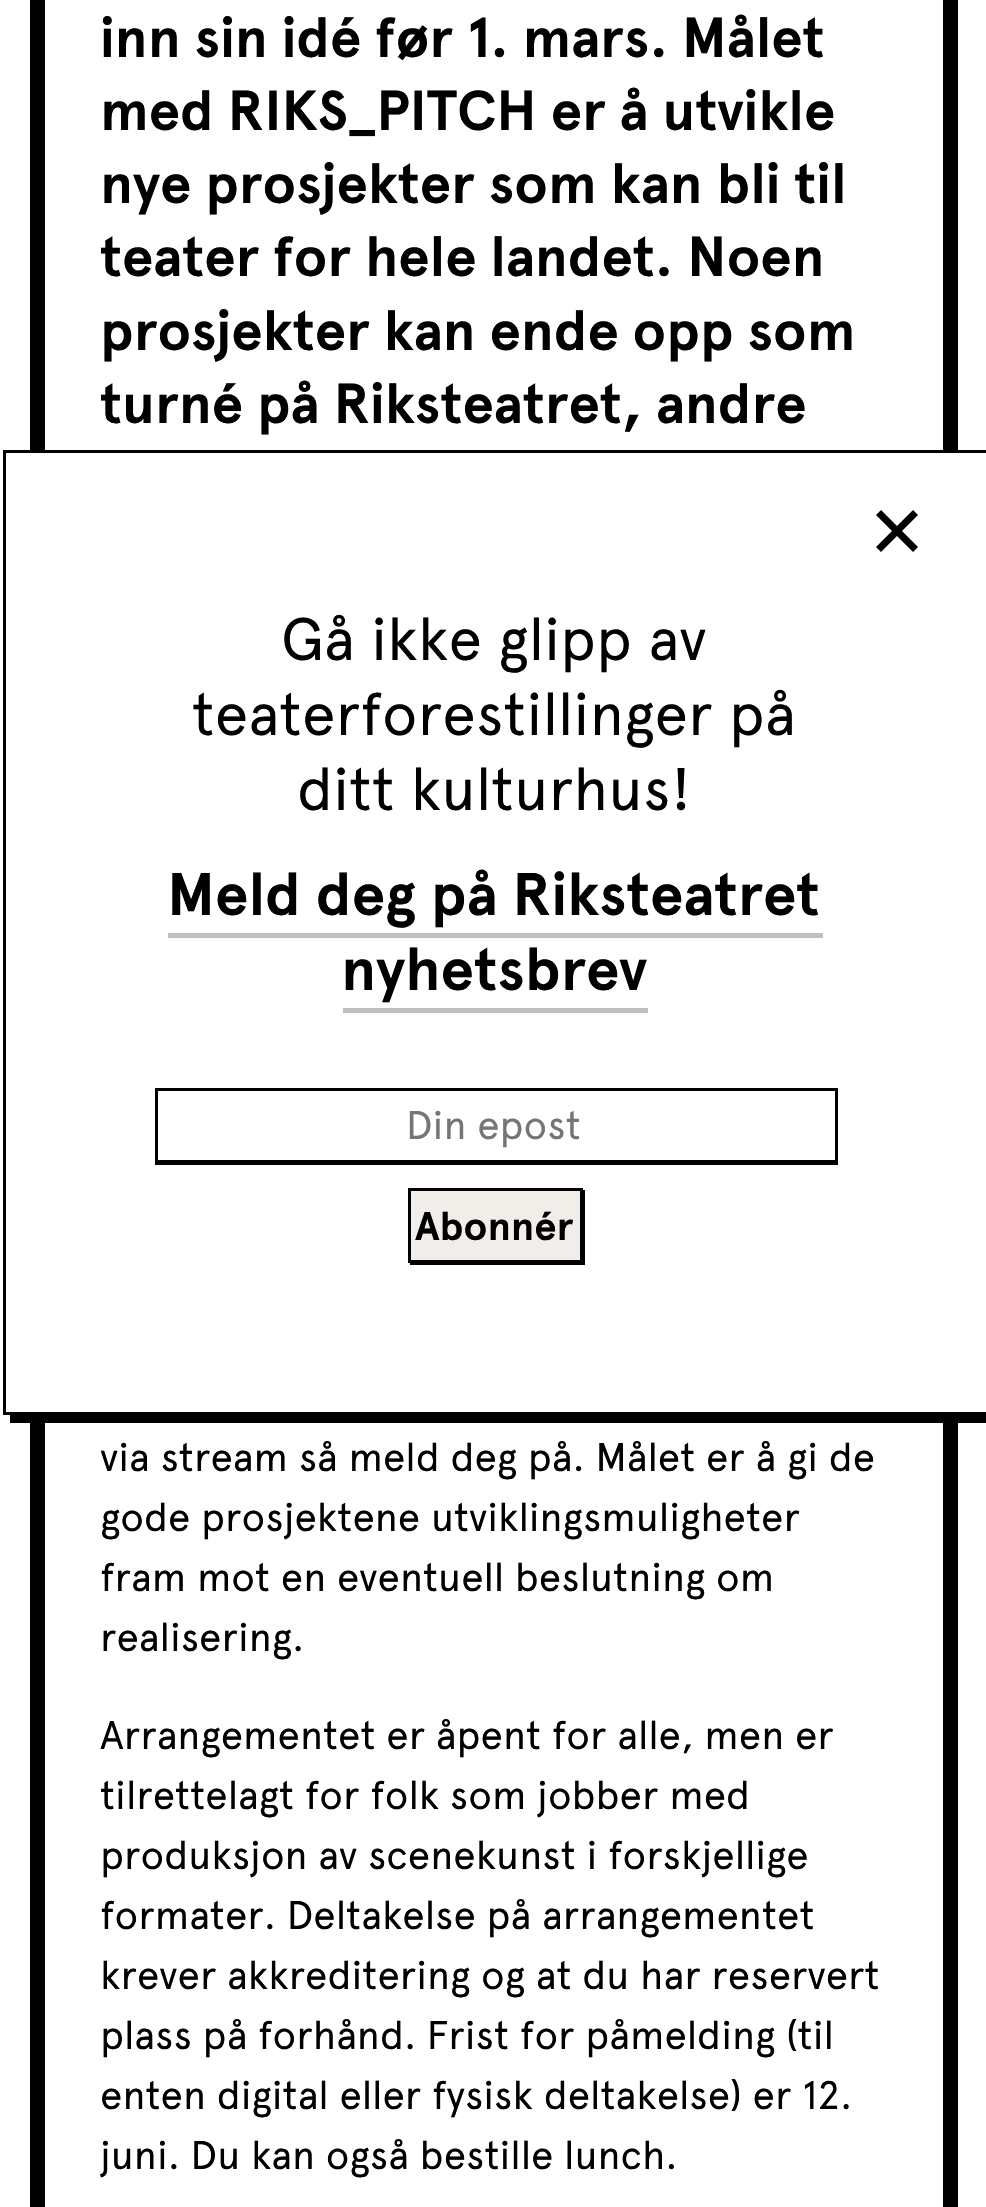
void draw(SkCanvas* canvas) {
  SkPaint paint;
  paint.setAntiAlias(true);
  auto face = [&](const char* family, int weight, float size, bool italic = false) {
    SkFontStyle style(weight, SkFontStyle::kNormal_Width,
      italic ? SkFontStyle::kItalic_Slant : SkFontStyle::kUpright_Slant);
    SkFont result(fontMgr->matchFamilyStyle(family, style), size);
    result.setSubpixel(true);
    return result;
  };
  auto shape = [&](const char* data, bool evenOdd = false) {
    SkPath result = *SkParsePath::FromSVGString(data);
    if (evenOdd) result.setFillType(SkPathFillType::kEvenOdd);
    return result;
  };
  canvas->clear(0xffffffff);
  paint.setStroke(true);
  paint.setStrokeWidth(15);
  paint.setColor(0xff000000);
  canvas->drawRect(SkRect::MakeXYWH(37.5f, -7.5f, 913, 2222), paint);
  paint.setStroke(false);
  canvas->drawPath(shape("M10 1415V1423H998V458H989V1415Z"), paint);
  paint.setColor(0xffffffff);
  canvas->drawRect(SkRect::MakeXYWH(30, 453, 928, 959), paint);
  paint.setStroke(true);
  paint.setStrokeWidth(3);
  paint.setColor(0xff000000);
  canvas->drawRect(SkRect::MakeXYWH(4.5f, 451.5f, 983, 962), paint);
  paint.setStroke(false);
  canvas->drawPath(shape("M913 510L918 515L881 552L876 547Z", true), paint);
  canvas->drawPath(shape("M881 510L918 547L913 552L876 515Z", true), paint);
  paint.setColor(0xffbfbfbf);
  canvas->drawRect(SkRect::MakeXYWH(168, 933, 655, 5), paint);
  canvas->drawRect(SkRect::MakeXYWH(343, 1008, 305, 5), paint);
  paint.setColor(0xff000000);
  canvas->drawPath(shape("M155 1162V1165H838V1090H836V1162Z"), paint);
  paint.setStroke(true);
  canvas->drawRect(SkRect::MakeXYWH(156.5f, 1089.5f, 680, 72), paint);
  paint.setStroke(false);
  canvas->drawPath(shape("M410 1262V1265H585V1190H581V1262Z"), paint);
  paint.setColor(0xfff1eee9);
  canvas->drawRect(SkRect::MakeXYWH(409.5f, 1189.5f, 172, 72), paint);
  paint.setStroke(true);
  paint.setColor(0xff000000);
  canvas->drawRect(SkRect::MakeXYWH(409.5f, 1189.5f, 172, 72), paint);
  auto f0 = face("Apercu", 700, 56.25f);
  paint.setStroke(false);
  {
    const struct { const char* s; float x, y; } items[] = {
      {"inn sin idé før 1. mars. Målet", 100, 57},
      {"med RIKS_PITCH er å utvikle", 100, 130},
      {"nye prosjekter som kan bli til", 100, 203},
      {"teater for hele landet. Noen", 100, 276},
      {"prosjekter kan ende opp som", 100, 350},
      {"turné på Riksteatret, andre", 100, 423},
    };
    for (auto [s, x, y] : items) {
      canvas->drawString(s, x, y, f0, paint);
    }
  }
  auto f1 = face("Apercu", 400, 40);
  {
    const struct { const char* s; float x, y; } items[] = {
      {"via stream så meld deg på. Målet er å gi de", 100, 1471},
      {"gode prosjektene utviklingsmuligheter", 100, 1531},
      {"fram mot en eventuell beslutning om", 100, 1591},
      {"realisering.", 100, 1651},
      {"Arrangementet er åpent for alle, men er", 100, 1749},
      {"tilrettelagt for folk som jobber med", 100, 1809},
      {"produksjon av scenekunst i forskjellige", 100, 1869},
      {"formater. Deltakelse på arrangementet", 100, 1929},
      {"krever akkreditering og at du har reservert", 100, 1989},
      {"plass på forhånd. Frist for påmelding (til", 100, 2049},
      {"enten digital eller fysisk deltakelse) er 12.", 100, 2109},
      {"juni. Du kan også bestille lunch.", 100, 2169},
    };
    for (auto [s, x, y] : items) {
      canvas->drawString(s, x, y, f1, paint);
    }
  }
  auto f2 = face("Apercu", 400, 60);
  {
    const struct { const char* s; float x, y; } items[] = {
      {"Gå ikke glipp av", 281, 660},
      {"teaterforestillinger på", 192, 735},
      {"ditt kulturhus!", 297, 810},
    };
    for (auto [s, x, y] : items) {
      canvas->drawString(s, x, y, f2, paint);
    }
  }
  auto f3 = face("Apercu", 700, 60);
  canvas->drawString("Meld deg på Riksteatret", 167, 915, f3, paint);
  canvas->drawString("nyhetsbrev", 341, 990, f3, paint);
  paint.setColor(0xff757575);
  canvas->drawString("Din epost", 406, 1139, f1, paint);
  auto f4 = face("Apercu", 700, 40);
  paint.setColor(0xff000000);
  canvas->drawString("Abonnér", 415, 1240, f4, paint);
}
